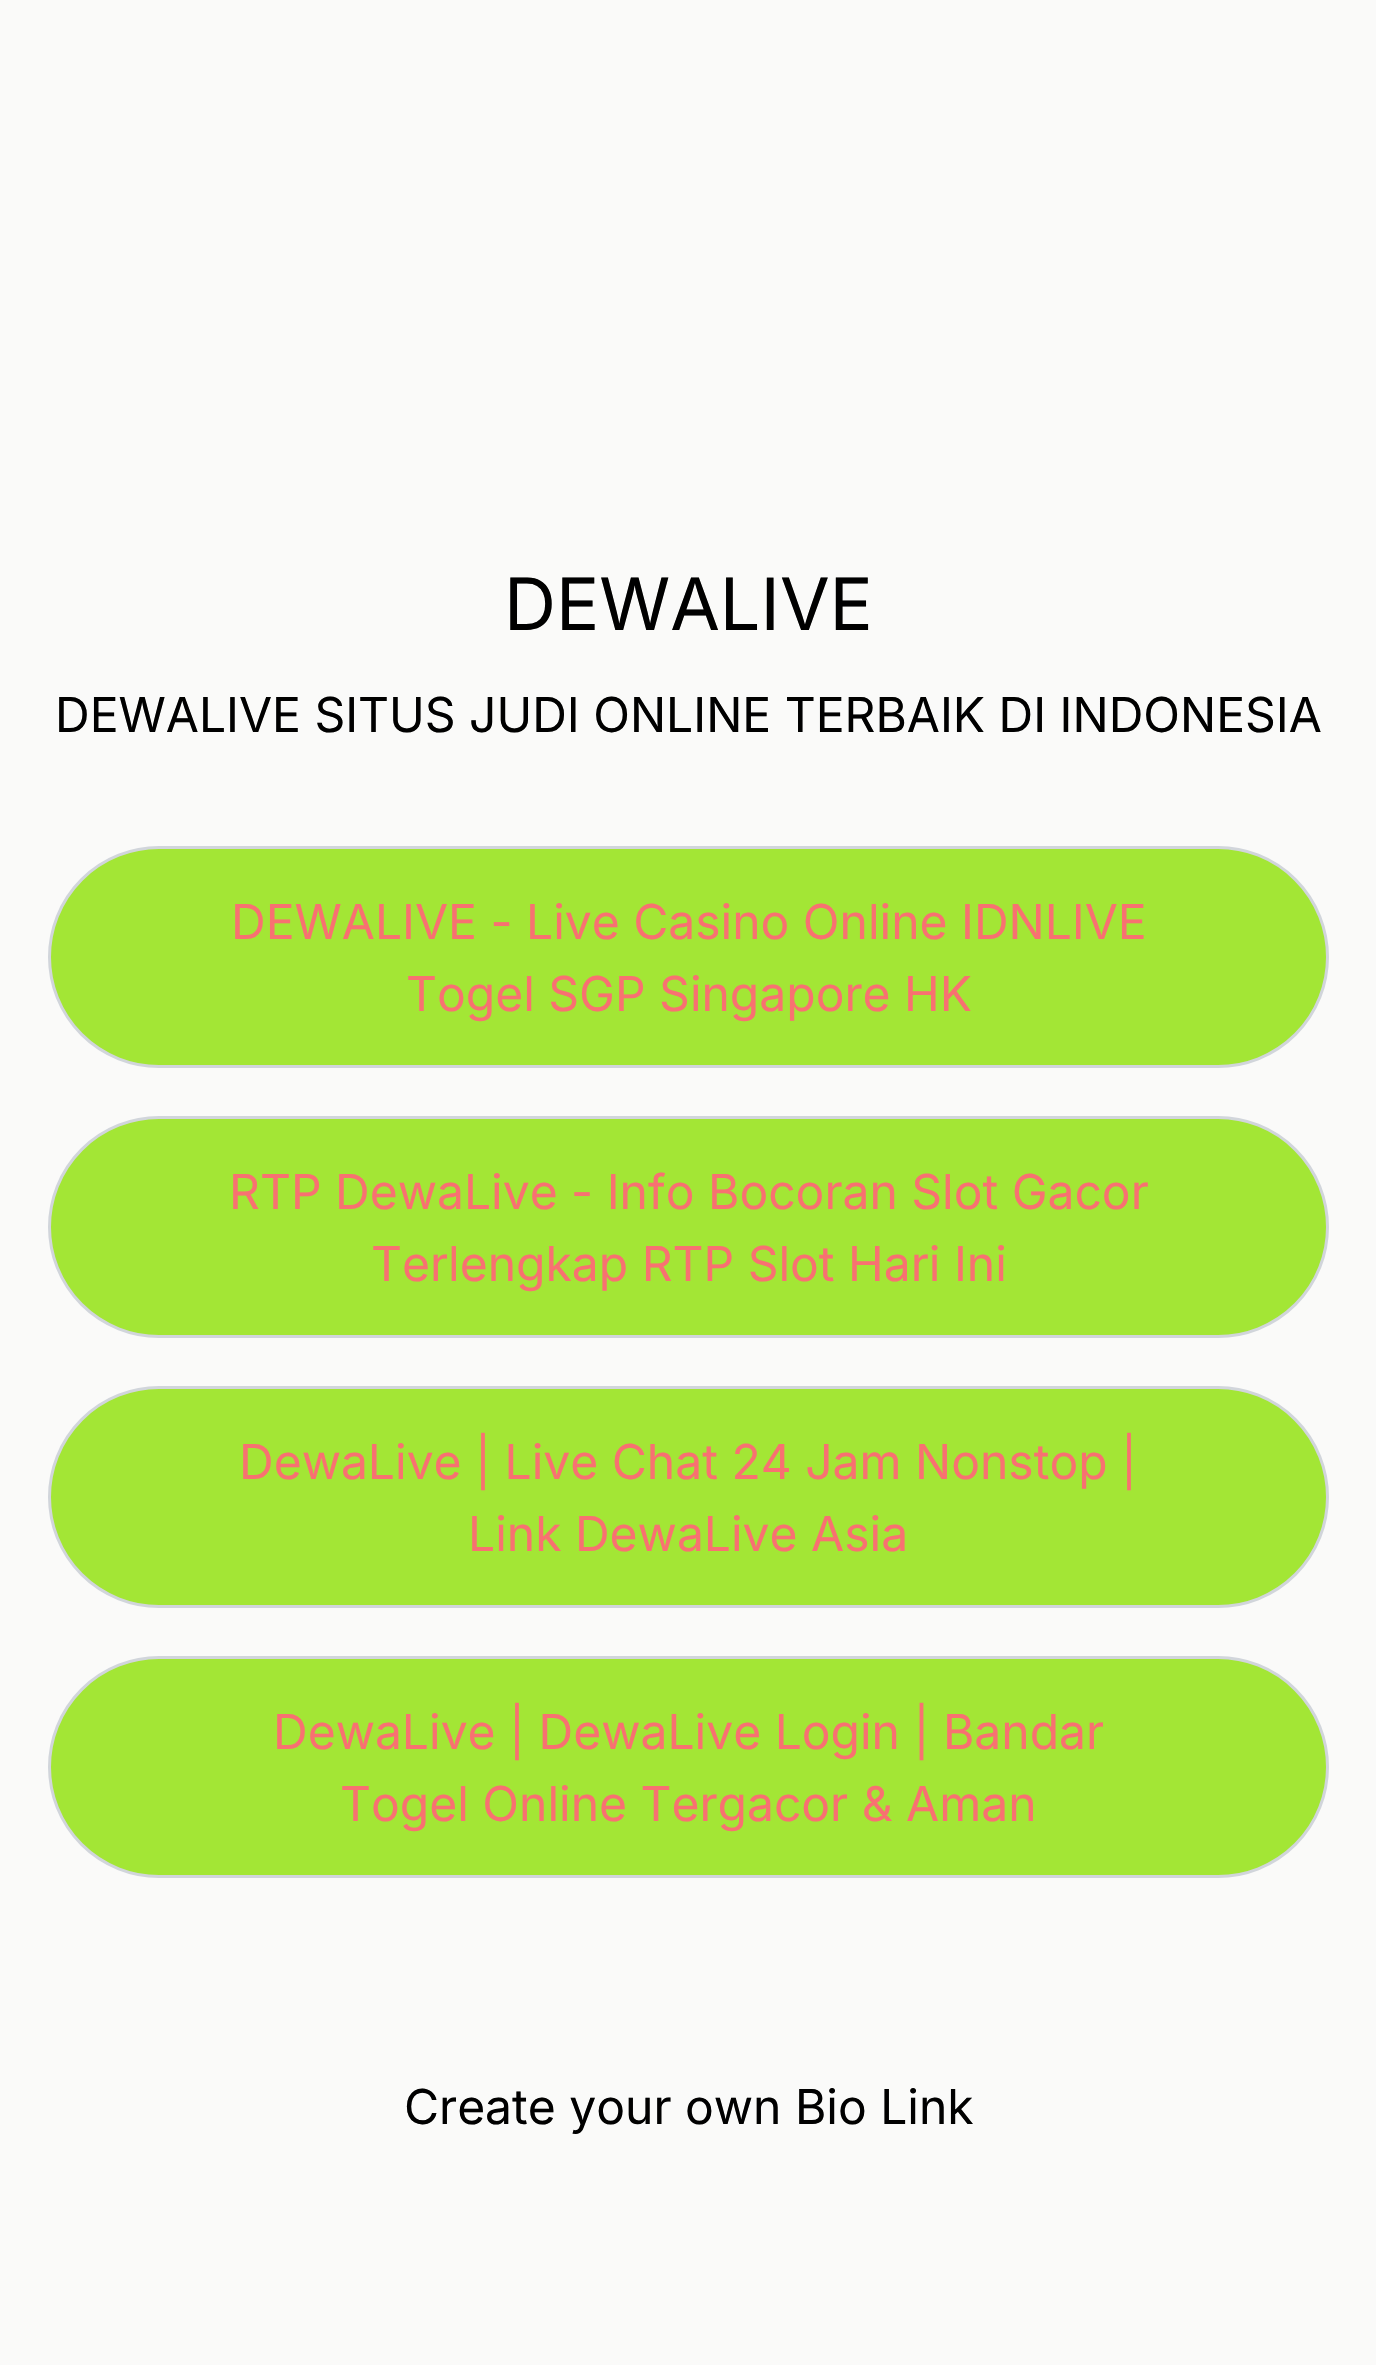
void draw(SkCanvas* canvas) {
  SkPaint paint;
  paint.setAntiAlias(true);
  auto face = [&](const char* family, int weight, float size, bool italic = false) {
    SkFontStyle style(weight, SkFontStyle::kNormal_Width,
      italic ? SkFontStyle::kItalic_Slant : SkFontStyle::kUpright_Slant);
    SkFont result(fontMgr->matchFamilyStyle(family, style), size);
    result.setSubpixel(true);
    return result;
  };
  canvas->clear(0xfffafaf9);
  paint.setColor(0xffa3e635);
  canvas->drawRoundRect(SkRect::MakeXYWH(49.5f, 847.5f, 1278, 219), 109.5f, 109.5f, paint);
  paint.setStroke(true);
  paint.setStrokeWidth(3);
  paint.setColor(0xffd1d5db);
  canvas->drawRoundRect(SkRect::MakeXYWH(49.5f, 847.5f, 1278, 219), 109.5f, 109.5f, paint);
  paint.setStroke(false);
  paint.setColor(0xffa3e635);
  canvas->drawRoundRect(SkRect::MakeXYWH(49.5f, 1117.5f, 1278, 219), 109.5f, 109.5f, paint);
  paint.setStroke(true);
  paint.setColor(0xffd1d5db);
  canvas->drawRoundRect(SkRect::MakeXYWH(49.5f, 1117.5f, 1278, 219), 109.5f, 109.5f, paint);
  paint.setStroke(false);
  paint.setColor(0xffa3e635);
  canvas->drawRoundRect(SkRect::MakeXYWH(49.5f, 1387.5f, 1278, 219), 109.5f, 109.5f, paint);
  paint.setStroke(true);
  paint.setColor(0xffd1d5db);
  canvas->drawRoundRect(SkRect::MakeXYWH(49.5f, 1387.5f, 1278, 219), 109.5f, 109.5f, paint);
  paint.setStroke(false);
  paint.setColor(0xffa3e635);
  canvas->drawRoundRect(SkRect::MakeXYWH(49.5f, 1657.5f, 1278, 219), 109.5f, 109.5f, paint);
  paint.setStroke(true);
  paint.setColor(0xffd1d5db);
  canvas->drawRoundRect(SkRect::MakeXYWH(49.5f, 1657.5f, 1278, 219), 109.5f, 109.5f, paint);
  auto f0 = face("Inter", 400, 72);
  paint.setStroke(false);
  paint.setColor(0xff000000);
  canvas->drawString("DEWALIVE", 504, 630, f0, paint);
  auto f1 = face("Inter", 400, 48);
  canvas->drawString("DEWALIVE SITUS JUDI ONLINE TERBAIK DI INDONESIA", 55, 732, f1, paint);
  paint.setColor(0xfff87171);
  {
    const struct { const char* s; float x, y; } items[] = {
      {"DEWALIVE - Live Casino Online IDNLIVE", 231, 939},
      {"Togel SGP Singapore HK", 406, 1011},
      {"RTP DewaLive - Info Bocoran Slot Gacor", 229, 1209},
      {"Terlengkap RTP Slot Hari Ini", 371, 1281},
      {"DewaLive | Live Chat 24 Jam Nonstop |", 239, 1479},
      {"Link DewaLive Asia", 468, 1551},
      {"DewaLive | DewaLive Login | Bandar", 273, 1749},
      {"Togel Online Tergacor & Aman", 340, 1821},
    };
    for (auto [s, x, y] : items) {
      canvas->drawString(s, x, y, f1, paint);
    }
  }
  paint.setColor(0xff000000);
  canvas->drawString("Create your own Bio Link", 404, 2124, f1, paint);
}
